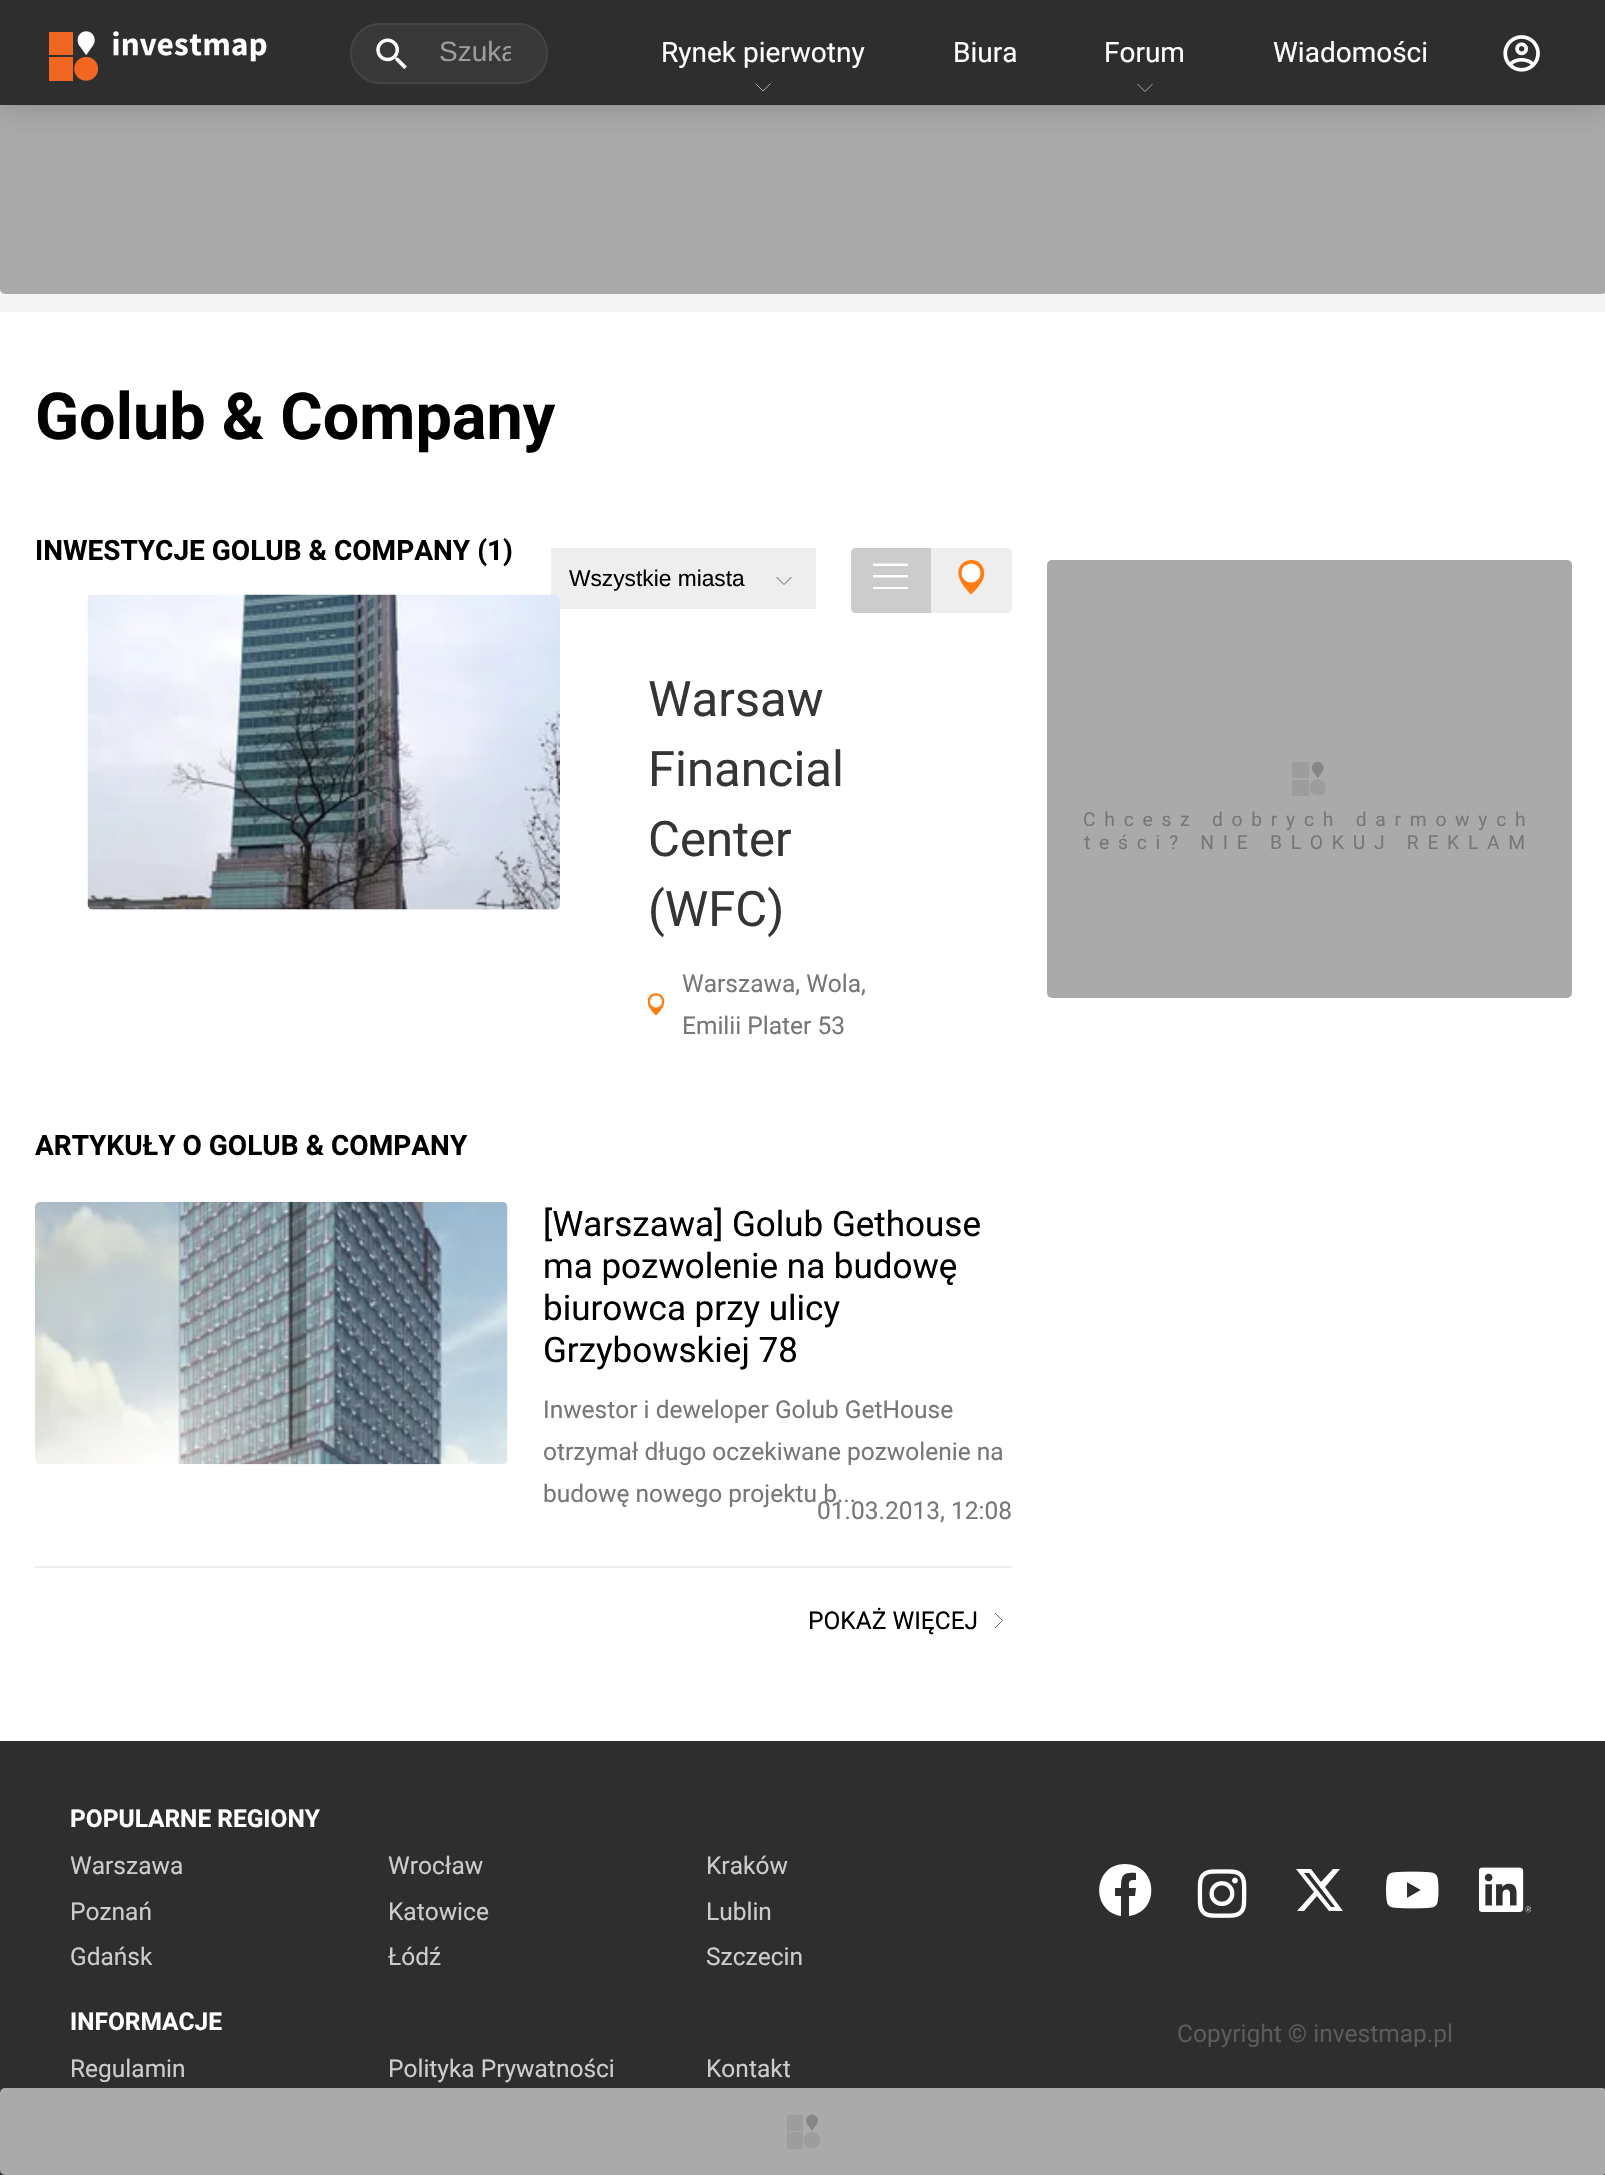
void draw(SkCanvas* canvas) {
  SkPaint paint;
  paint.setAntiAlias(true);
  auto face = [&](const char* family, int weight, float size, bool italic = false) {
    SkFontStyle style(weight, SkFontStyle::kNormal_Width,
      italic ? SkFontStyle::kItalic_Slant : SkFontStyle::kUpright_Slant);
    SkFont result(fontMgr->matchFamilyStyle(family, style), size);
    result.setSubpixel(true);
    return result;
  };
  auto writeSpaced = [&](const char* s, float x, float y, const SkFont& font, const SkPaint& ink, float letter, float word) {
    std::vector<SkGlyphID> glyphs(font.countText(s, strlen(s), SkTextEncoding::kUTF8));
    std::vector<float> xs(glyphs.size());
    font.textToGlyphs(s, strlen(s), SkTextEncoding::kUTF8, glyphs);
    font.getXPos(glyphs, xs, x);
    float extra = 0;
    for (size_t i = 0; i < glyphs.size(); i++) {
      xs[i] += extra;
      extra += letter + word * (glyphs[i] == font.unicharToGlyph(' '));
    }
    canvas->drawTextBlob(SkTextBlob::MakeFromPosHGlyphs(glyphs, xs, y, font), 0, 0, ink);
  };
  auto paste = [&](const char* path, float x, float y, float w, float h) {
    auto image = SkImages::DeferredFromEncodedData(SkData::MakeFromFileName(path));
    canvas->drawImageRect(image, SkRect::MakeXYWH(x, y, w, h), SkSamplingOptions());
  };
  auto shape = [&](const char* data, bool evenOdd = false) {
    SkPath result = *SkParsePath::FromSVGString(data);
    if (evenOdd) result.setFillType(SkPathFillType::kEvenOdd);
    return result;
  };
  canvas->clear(0xffffffff);
  paint.setColor(0xfff5f5f5);
  canvas->drawRect(SkRect::MakeXYWH(0, 289, 1605, 23), paint);
  paint.setColor(0xffaaaaaa);
  canvas->drawRoundRect(SkRect::MakeXYWH(0, -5, 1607, 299), 5, 5, paint);
  paint.setColor(0x33000000);
  paint.setMaskFilter(SkMaskFilter::MakeBlur(kNormal_SkBlurStyle, 17.5f));
  canvas->drawRect(SkRect::MakeXYWH(0, 0, 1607, 105), paint);
  paint.setMaskFilter(nullptr);
  paint.setColor(0xff2e2e2e);
  canvas->drawRect(SkRect::MakeXYWH(0, 0, 1605, 105), paint);
  paste("img/1.png", 49, 31, 218, 50);
  paint.setColor(0xff383838);
  canvas->drawRoundRect(SkRect::MakeXYWH(351, 24, 196, 59), 29, 29, paint);
  paint.setStroke(true);
  paint.setStrokeWidth(2);
  paint.setColor(0xff444444);
  canvas->drawRoundRect(SkRect::MakeXYWH(351, 24, 196, 59), 29, 29, paint);
  paste("img/2.png", 376, 38, 31, 31);
  paint.setStrokeWidth(0.6f);
  paint.setColor(0xffffffff);
  canvas->drawPath(shape("M755.5 83.5L763 91L770.5 83.5"), paint);
  canvas->drawPath(shape("M1137.5 84L1145 91.5L1152.5 84"), paint);
  paste("img/3.png", 1503, 35, 37, 37);
  paint.setStroke(false);
  paint.setColor(0xffeeeeee);
  canvas->drawRect(SkRect::MakeXYWH(551, 548, 265, 61), paint);
  paint.setStroke(true);
  paint.setColor(0xff000000);
  canvas->drawPath(shape("M776.5 577L784 584.5L791.5 577"), paint);
  paint.setStroke(false);
  paint.setColor(0xffcccccc);
  canvas->drawPath(shape("M856 548H931V613H856C853 613 851 611 851 608V553C851 550 853 548 856 548Z"), paint);
  paint.setColor(0xffffffff);
  canvas->drawPath(shape("M873 563.5H908V566H873ZM873 575H908V577.5H873ZM873 587H908V589H873Z"), paint);
  paint.setColor(0xffeeeeee);
  canvas->drawPath(shape("M931 548H1007C1010 548 1012 550 1012 553V608C1012 611 1010 613 1007 613H931Z"), paint);
  paint.setColor(0xffff7d12);
  canvas->drawPath(shape("M984 576C982 585 971 594.5 971 594.5C966 589.5 959.5 582 958.5 574.5C956.5 561 974.5 554.5 982 565.5C984 568.5 984.5 572.5 984 576Z"), paint);
  paint.setColor(0xffffffff);
  canvas->drawCircle(971, 573, 9.5f, paint);
  paint.setColor(0xfff5f5f5);
  canvas->drawRect(SkRect::MakeXYWH(88, 595, 472, 315), paint);
  paste("img/4.png", 87, 594, 473, 316);
  paste("img/5.png", 648, 993, 17, 23);
  paint.setColor(0xffeeeeee);
  canvas->drawRect(SkRect::MakeXYWH(35, 1566, 977, 2), paint);
  paste("img/6.png", 35, 1201, 473, 264);
  paint.setStroke(true);
  paint.setColor(0xff000000);
  canvas->drawPath(shape("M995 1628L1002.5 1620.5L995 1613"), paint);
  paint.setStroke(false);
  paint.setColor(0xffaaaaaa);
  canvas->drawRoundRect(SkRect::MakeXYWH(1047, 560, 525, 438), 5, 5, paint);
  paste("img/7.png", 1292, 761, 34, 35);
  paint.setColor(0xff2e2e2e);
  canvas->drawRect(SkRect::MakeXYWH(0, 1741, 1605, 434), paint);
  paint.setColor(0xffffffff);
  canvas->drawPath(shape("M1125 1864C1093 1864 1090 1911 1121 1916V1896H1115V1888H1121C1121 1875 1123 1872 1136 1873V1880C1128 1880 1129 1881 1129 1888H1136L1135 1896H1129V1916C1161 1912 1158 1864 1125 1864"), paint);
  paste("img/8.png", 1197, 1869, 50, 49);
  canvas->drawPath(shape("M1333 1869H1340L1325 1887L1343 1911H1329L1317 1896L1304 1911H1297L1314 1892L1296 1869H1311L1321 1882ZM1331 1907H1335L1309 1873H1304Z"), paint);
  paste("img/9.png", 1386, 1871, 53, 38);
  paste("img/10.png", 1479, 1867, 52, 46);
  paint.setColor(0xffaaaaaa);
  canvas->drawRoundRect(SkRect::MakeXYWH(0, 2088, 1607, 87), 5, 5, paint);
  paste("img/11.png", 787, 2114, 33, 35);
  canvas->save();
  canvas->clipRect(SkRect::MakeXYWH(439, 37, 72, 31));
  auto f0 = face("Liberation Sans", 400, 28);
  paint.setColor(0xff9c9c9c);
  canvas->drawString("Szuka", 439, 61, f0, paint);
  canvas->restore();
  auto f1 = face("Roboto", 400, 28);
  paint.setColor(0xffffffff);
  {
    const struct { const char* s; float x, y; } items[] = {
      {"Rynek pierwotny", 661, 62},
      {"Biura", 953, 62},
      {"Forum", 1104, 62},
      {"Wiadomości", 1273, 62},
    };
    for (auto [s, x, y] : items) {
      canvas->drawString(s, x, y, f1, paint);
    }
  }
  auto f2 = face("Roboto", 700, 64.75f);
  paint.setColor(0xff000000);
  canvas->drawString("Golub & Company", 35, 439, f2, paint);
  auto f3 = face("Roboto", 700, 28);
  canvas->drawString("INWESTYCJE GOLUB & COMPANY (1)", 35, 560, f3, paint);
  auto f4 = face("Liberation Sans", 400, 22.75f);
  canvas->drawString("Wszystkie miasta", 569, 586, f4, paint);
  auto f5 = face("Roboto", 400, 49);
  paint.setColor(0xff353535);
  {
    const struct { const char* s; float x, y; } items[] = {
      {"Warsaw", 648, 716},
      {"Financial", 648, 786},
      {"Center", 648, 856},
      {"(WFC)", 648, 926},
    };
    for (auto [s, x, y] : items) {
      canvas->drawString(s, x, y, f5, paint);
    }
  }
  auto f6 = face("Roboto", 400, 24.5f);
  paint.setColor(0xff777777);
  canvas->drawString("Warszawa, Wola,", 682, 992, f6, paint);
  canvas->drawString("Emilii Plater 53", 682, 1034, f6, paint);
  paint.setColor(0xff000000);
  canvas->drawString("ARTYKUŁY O GOLUB & COMPANY", 35, 1155, f3, paint);
  auto f7 = face("Roboto", 400, 35);
  {
    const struct { const char* s; float x, y; } items[] = {
      {"[Warszawa] Golub Gethouse", 543, 1236},
      {"ma pozwolenie na budowę", 543, 1278},
      {"biurowca przy ulicy", 543, 1320},
      {"Grzybowskiej 78", 543, 1362},
    };
    for (auto [s, x, y] : items) {
      canvas->drawString(s, x, y, f7, paint);
    }
  }
  paint.setColor(0xff777777);
  {
    const struct { const char* s; float x, y; } items[] = {
      {"Inwestor i deweloper Golub GetHouse", 543, 1418},
      {"otrzymał długo oczekiwane pozwolenie na", 543, 1460},
      {"budowę nowego projektu b...", 543, 1502},
      {"01.03.2013, 12:08", 817, 1519},
    };
    for (auto [s, x, y] : items) {
      canvas->drawString(s, x, y, f6, paint);
    }
  }
  paint.setColor(0xff000000);
  canvas->drawString("POKAŻ WIĘCEJ", 808, 1629, f6, paint);
  auto f8 = face("Roboto", 400, 19.25f);
  paint.setColor(0xff777777);
  writeSpaced("Chcesz dobrych darmowych", 1083, 826, f8, paint, 8.75f, 0);
  writeSpaced("teści? NIE BLOKUJ REKLAM", 1084, 849, f8, paint, 8.75f, 0);
  auto f9 = face("Roboto", 700, 24.5f);
  paint.setColor(0xffffffff);
  canvas->drawString("POPULARNE REGIONY", 70, 1827, f9, paint);
  paint.setColor(0xffcccccc);
  {
    const struct { const char* s; float x, y; } items[] = {
      {"Warszawa", 70, 1874},
      {"Wrocław", 388, 1874},
      {"Kraków", 706, 1874},
      {"Poznań", 70, 1920},
      {"Katowice", 388, 1920},
      {"Lublin", 706, 1920},
      {"Gdańsk", 70, 1965},
      {"Łódź", 388, 1965},
      {"Szczecin", 706, 1965},
    };
    for (auto [s, x, y] : items) {
      canvas->drawString(s, x, y, f6, paint);
    }
  }
  paint.setColor(0xffffffff);
  canvas->drawString("INFORMACJE", 70, 2030, f9, paint);
  paint.setColor(0xffcccccc);
  {
    const struct { const char* s; float x, y; } items[] = {
      {"Regulamin", 70, 2077},
      {"Polityka Prywatności", 388, 2077},
      {"Kontakt", 706, 2077},
    };
    for (auto [s, x, y] : items) {
      canvas->drawString(s, x, y, f6, paint);
    }
  }
  paint.setColor(0xff5b5b5b);
  canvas->drawString("Copyright © investmap.pl", 1177, 2042, f6, paint);
}
